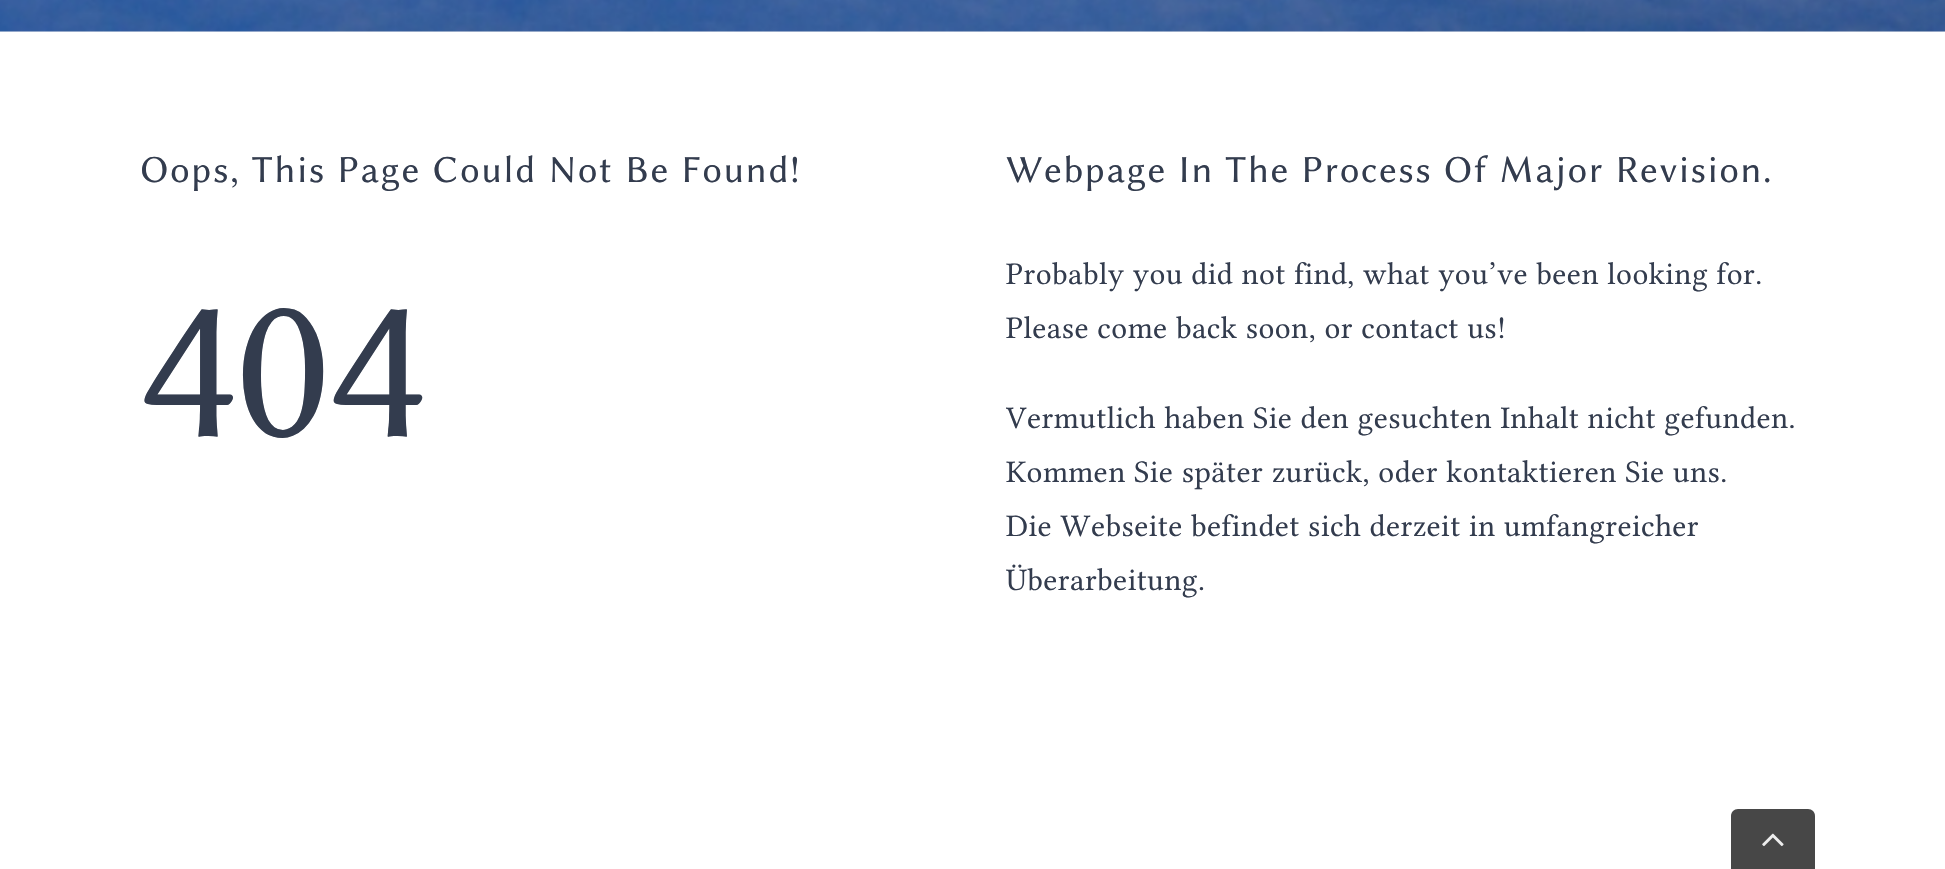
void draw(SkCanvas* canvas) {
  SkPaint paint;
  paint.setAntiAlias(true);
  auto face = [&](const char* family, int weight, float size, bool italic = false) {
    SkFontStyle style(weight, SkFontStyle::kNormal_Width,
      italic ? SkFontStyle::kItalic_Slant : SkFontStyle::kUpright_Slant);
    SkFont result(fontMgr->matchFamilyStyle(family, style), size);
    result.setSubpixel(true);
    return result;
  };
  auto writeSpaced = [&](const char* s, float x, float y, const SkFont& font, const SkPaint& ink, float letter, float word) {
    std::vector<SkGlyphID> glyphs(font.countText(s, strlen(s), SkTextEncoding::kUTF8));
    std::vector<float> xs(glyphs.size());
    font.textToGlyphs(s, strlen(s), SkTextEncoding::kUTF8, glyphs);
    font.getXPos(glyphs, xs, x);
    float extra = 0;
    for (size_t i = 0; i < glyphs.size(); i++) {
      xs[i] += extra;
      extra += letter + word * (glyphs[i] == font.unicharToGlyph(' '));
    }
    canvas->drawTextBlob(SkTextBlob::MakeFromPosHGlyphs(glyphs, xs, y, font), 0, 0, ink);
  };
  auto paste = [&](const char* path, float x, float y, float w, float h) {
    auto image = SkImages::DeferredFromEncodedData(SkData::MakeFromFileName(path));
    canvas->drawImageRect(image, SkRect::MakeXYWH(x, y, w, h), SkSamplingOptions());
  };
  auto shape = [&](const char* data, bool evenOdd = false) {
    SkPath result = *SkParsePath::FromSVGString(data);
    if (evenOdd) result.setFillType(SkPathFillType::kEvenOdd);
    return result;
  };
  canvas->clear(0xffffffff);
  paint.setColor(0xfff5f5f5);
  canvas->drawRect(SkRect::MakeXYWH(0, 31, 1945, 1), paint);
  paste("img/1.png", 0, 0, 1945, 32);
  paint.setColor(0xff474747);
  canvas->drawPath(shape("M1738 809H1808C1812 809 1815 812 1815 816V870H1731V816C1731 812 1734 809 1738 809Z"), paint);
  paste("img/2.png", 1762, 833, 22, 14);
  auto f0 = face("Libertinus Sans", 400, 38.5f);
  paint.setColor(0xff333c4e);
  writeSpaced("Oops, This Page Could Not Be Found!", 140, 182, f0, paint, 1.75f, 0);
  auto f1 = face("Libertinus Sans", 400, 210);
  writeSpaced("404", 140, 436, f1, paint, -3, 0);
  writeSpaced("Webpage In The Process Of Major Revision.", 1006, 182, f0, paint, 1.75f, 0);
  auto f2 = face("Libertinus Serif", 400, 31.5f);
  {
    const struct { const char* s; float x, y; } items[] = {
      {"Probably you did not find, what you’ve been looking for.", 1006, 284},
      {"Please come back soon, or contact us!", 1006, 338},
      {"Vermutlich haben Sie den gesuchten Inhalt nicht gefunden.", 1006, 428},
      {"Kommen Sie später zurück, oder kontaktieren Sie uns.", 1006, 482},
      {"Die Webseite befindet sich derzeit in umfangreicher", 1006, 536},
      {"Überarbeitung.", 1006, 590},
    };
    for (auto [s, x, y] : items) {
      writeSpaced(s, x, y, f2, paint, 0.47f, 0);
    }
  }
}
